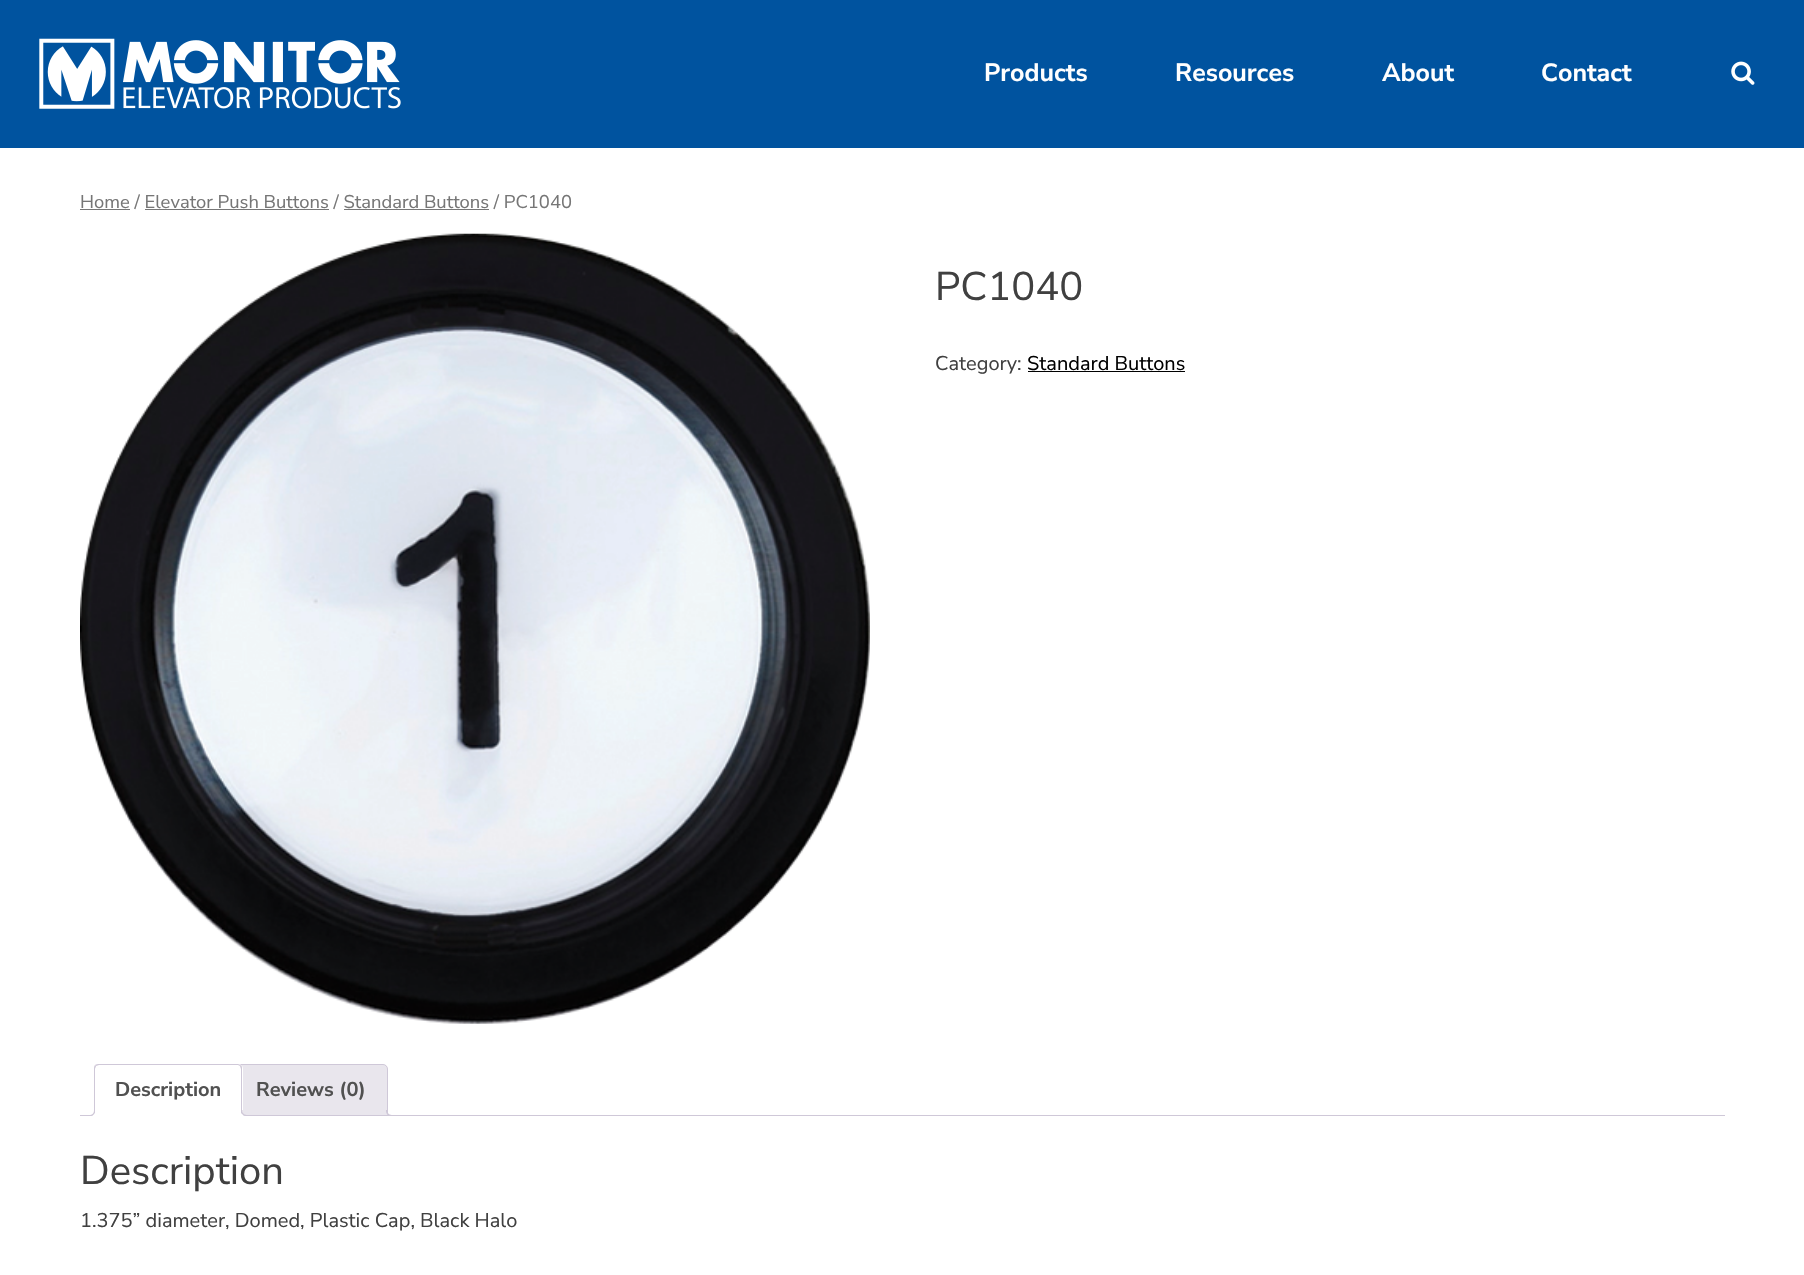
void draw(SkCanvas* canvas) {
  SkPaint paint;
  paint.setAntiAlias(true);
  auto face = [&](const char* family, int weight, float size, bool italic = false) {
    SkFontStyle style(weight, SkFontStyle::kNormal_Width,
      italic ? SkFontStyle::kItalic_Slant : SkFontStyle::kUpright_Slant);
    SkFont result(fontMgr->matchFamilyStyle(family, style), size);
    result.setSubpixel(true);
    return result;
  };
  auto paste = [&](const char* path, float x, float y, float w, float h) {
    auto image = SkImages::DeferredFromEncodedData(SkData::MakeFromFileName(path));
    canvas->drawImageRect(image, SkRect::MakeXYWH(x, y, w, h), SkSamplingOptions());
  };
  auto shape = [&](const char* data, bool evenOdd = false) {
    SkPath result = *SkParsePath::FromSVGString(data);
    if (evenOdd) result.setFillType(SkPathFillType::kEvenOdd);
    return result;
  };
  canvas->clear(0xffffffff);
  paint.setColor(0xff00539f);
  canvas->drawRect(SkRect::MakeXYWH(0, 0, 1804, 148), paint);
  paste("img/1.png", 39, 38, 362, 71);
  paste("img/2.png", 1731, 61, 24, 24);
  {
    const struct { float x, y, w, h; SkColor color; } items[] = {
      {80, 209, 50, 1, 0xff767676},
      {145, 209, 184, 1, 0xff767676},
      {344, 209, 145, 1, 0xff767676},
    };
    for (auto [x, y, w, h, color] : items) {
      paint.setColor(color);
      canvas->drawRect(SkRect::MakeXYWH(x, y, w, h), paint);
    }
  }
  paste("img/3.png", 80, 233, 790, 791);
  paint.setColor(0xff000000);
  canvas->drawRect(SkRect::MakeXYWH(1028, 371, 157, 1), paint);
  paint.setColor(0xffe9e6ed);
  canvas->drawPath(shape("M240 1064.5H383C385.5 1064.5 387.5 1066.5 387.5 1069V1115.5H235.5V1069C235.5 1066.5 237.5 1064.5 240 1064.5Z"), paint);
  paint.setStroke(true);
  paint.setStrokeWidth(1);
  paint.setColor(0xffcfc8d8);
  canvas->drawPath(shape("M240 1064.5H383C385.5 1064.5 387.5 1066.5 387.5 1069V1115.5H235.5V1069C235.5 1066.5 237.5 1064.5 240 1064.5Z"), paint);
  canvas->save();
  canvas->clipRect(SkRect::MakeXYWH(80, 1064, 1645, 52));
  paint.setStroke(false);
  paint.setColor(0xffe9e6ed);
  canvas->drawPath(shape("M384 1113C384 1117 386 1119 390 1119V1116C388.5 1115.5 387 1114.5 386.5 1113Z"), paint);
  canvas->restore();
  paint.setColor(0xffcfc8d8);
  canvas->drawPath(shape("M386 1110H392.5V1116C389.5 1116 386 1115 386 1111ZM387.5 1110H392.5V1115C390 1115 387.5 1114 387.5 1111Z", true), paint);
  canvas->drawRect(SkRect::MakeXYWH(80, 1115, 1645, 1), paint);
  paint.setColor(0xffffffff);
  canvas->drawPath(shape("M99 1064H238C241 1064 243 1066 243 1069V1116H94V1069C94 1066 96 1064 99 1064Z"), paint);
  paint.setColor(0xffcfc8d8);
  canvas->drawPath(shape("M99 1064C98 1064 96 1064 95 1065L96 1066L99 1065H238L240 1066L241 1065C240 1065 239 1064 238 1064Z"), paint);
  canvas->drawPath(shape("M242 1116V1069C242 1068 242 1066 241 1065L240 1066L241 1069V1115Z"), paint);
  paint.setColor(0xffffffff);
  canvas->drawPath(shape("M242 1116H94L95 1115H241Z"), paint);
  paint.setColor(0xffcfc8d8);
  canvas->drawPath(shape("M95 1065C94 1066 94 1068 94 1069V1116L95 1115V1069C95 1068 96 1067 96 1066Z"), paint);
  canvas->save();
  canvas->clipRect(SkRect::MakeXYWH(80, 1064, 1645, 52));
  paint.setColor(0xffffffff);
  canvas->drawPath(shape("M91 1116V1119C95.5 1119 98 1118 98 1113H94.5C94 1114.5 92.5 1116 91 1116Z"), paint);
  canvas->restore();
  paint.setColor(0xffcfc8d8);
  canvas->drawPath(shape("M89 1110H95C95 1114.5 93 1116 89 1116ZM89 1110H94C94 1113.5 92.5 1115 89 1115Z", true), paint);
  canvas->save();
  canvas->clipRect(SkRect::MakeXYWH(80, 1064, 1645, 52));
  paint.setColor(0xffffffff);
  canvas->drawPath(shape("M239 1113C239 1117 241 1119 245 1119V1116C243.5 1115.5 242 1114.5 241.5 1113Z"), paint);
  canvas->restore();
  paint.setColor(0xffcfc8d8);
  canvas->drawPath(shape("M241 1110H247.5V1116C244.5 1116 241 1115 241 1111ZM242.5 1110H247.5V1115C245 1115 242.5 1114 242.5 1111Z", true), paint);
  auto f0 = face("Nunito Sans", 700, 25);
  paint.setColor(0xffffffff);
  {
    const struct { const char* s; float x, y; } items[] = {
      {"Products", 984, 81},
      {"Resources", 1175, 81},
      {"About", 1382, 81},
      {"Contact", 1541, 81},
    };
    for (auto [s, x, y] : items) {
      canvas->drawString(s, x, y, f0, paint);
    }
  }
  auto f1 = face("Nunito Sans", 400, 18.4f);
  paint.setColor(0xff767676);
  canvas->drawString("Home / Elevator Push Buttons / Standard Buttons / PC1040", 80, 208, f1, paint);
  auto f2 = face("Nunito Sans", 400, 40);
  paint.setColor(0xff404040);
  canvas->drawString("PC1040", 935, 300, f2, paint);
  auto f3 = face("Nunito Sans", 400, 20);
  canvas->drawString("Category:", 935, 370, f3, paint);
  paint.setColor(0xff000000);
  canvas->drawString("Standard Buttons", 1027, 370, f3, paint);
  auto f4 = face("Nunito Sans", 700, 20);
  paint.setColor(0xff515151);
  canvas->drawString("Description", 115, 1096, f4, paint);
  canvas->drawString("Reviews (0)", 256, 1096, f4, paint);
  paint.setColor(0xff404040);
  canvas->drawString("Description", 80, 1184, f2, paint);
  canvas->drawString("1.375” diameter, Domed, Plastic Cap, Black Halo", 80, 1227, f3, paint);
}
